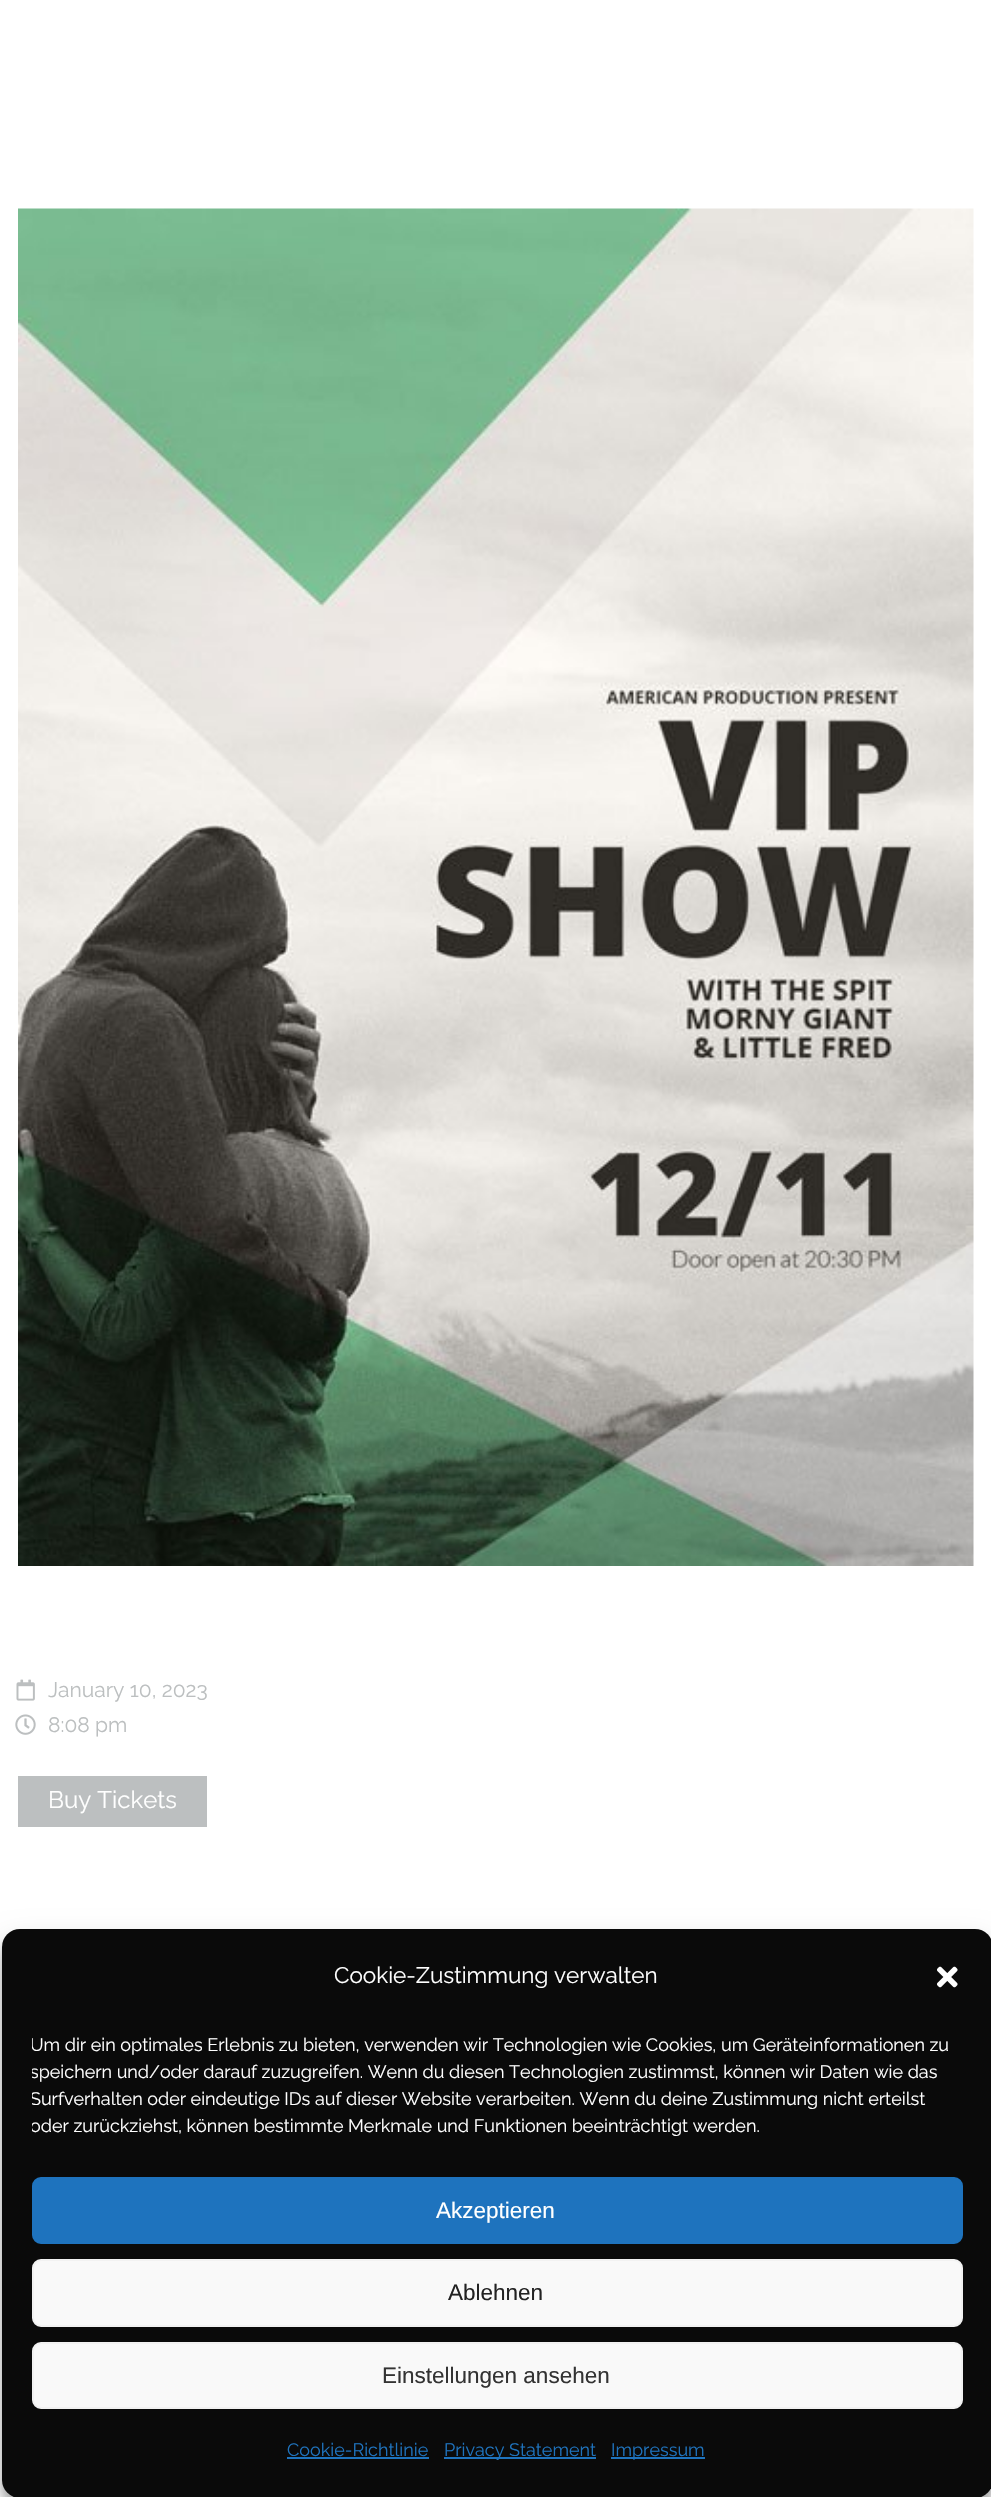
void draw(SkCanvas* canvas) {
  SkPaint paint;
  paint.setAntiAlias(true);
  auto face = [&](const char* family, int weight, float size, bool italic = false) {
    SkFontStyle style(weight, SkFontStyle::kNormal_Width,
      italic ? SkFontStyle::kItalic_Slant : SkFontStyle::kUpright_Slant);
    SkFont result(fontMgr->matchFamilyStyle(family, style), size);
    result.setSubpixel(true);
    return result;
  };
  auto paste = [&](const char* path, float x, float y, float w, float h) {
    auto image = SkImages::DeferredFromEncodedData(SkData::MakeFromFileName(path));
    canvas->drawImageRect(image, SkRect::MakeXYWH(x, y, w, h), SkSamplingOptions());
  };
  auto shape = [&](const char* data, bool evenOdd = false) {
    SkPath result = *SkParsePath::FromSVGString(data);
    if (evenOdd) result.setFillType(SkPathFillType::kEvenOdd);
    return result;
  };
  canvas->clear(0xffffffff);
  paste("img/1.png", 18, 208, 956, 1358);
  paste("img/2.png", 16, 1679, 19, 22);
  paste("img/3.png", 15, 1714, 21, 21);
  paint.setColor(0xffbcbfc0);
  canvas->drawRect(SkRect::MakeXYWH(18, 1776, 189, 51), paint);
  canvas->save();
  canvas->clipPath(shape("M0 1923H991V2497H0ZM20 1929H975C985 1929 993 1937 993 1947V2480C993 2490 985 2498 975 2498H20C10 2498 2 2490 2 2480V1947C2 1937 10 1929 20 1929Z", true), true);
  paint.setColor(0x3b000000);
  paint.setMaskFilter(SkMaskFilter::MakeBlur(kNormal_SkBlurStyle, 4.5f));
  canvas->drawRoundRect(SkRect::MakeXYWH(2, 1938, 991, 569), 18, 18, paint);
  paint.setMaskFilter(nullptr);
  canvas->restore();
  canvas->save();
  canvas->clipPath(shape("M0 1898H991V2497H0ZM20 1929H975C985 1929 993 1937 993 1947V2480C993 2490 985 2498 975 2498H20C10 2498 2 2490 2 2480V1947C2 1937 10 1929 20 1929Z", true), true);
  paint.setColor(0x30000000);
  paint.setMaskFilter(SkMaskFilter::MakeBlur(kNormal_SkBlurStyle, 15));
  canvas->drawRoundRect(SkRect::MakeXYWH(2, 1944, 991, 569), 18, 18, paint);
  paint.setMaskFilter(nullptr);
  canvas->restore();
  paint.setColor(0xff0a0a0a);
  canvas->drawRoundRect(SkRect::MakeXYWH(2, 1929, 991, 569), 18, 18, paint);
  paste("img/4.png", 937, 1966, 21, 22);
  paint.setColor(0xff1e73be);
  canvas->drawRoundRect(SkRect::MakeXYWH(33, 2178, 929, 65), 8, 8, paint);
  paint.setStroke(true);
  paint.setStrokeWidth(2);
  canvas->drawRoundRect(SkRect::MakeXYWH(33, 2178, 929, 65), 8, 8, paint);
  paint.setStroke(false);
  paint.setColor(0xfff9f9f9);
  canvas->drawRoundRect(SkRect::MakeXYWH(33, 2260, 929, 66), 8, 8, paint);
  paint.setStroke(true);
  paint.setColor(0xfff2f2f2);
  canvas->drawRoundRect(SkRect::MakeXYWH(33, 2260, 929, 66), 8, 8, paint);
  paint.setStroke(false);
  paint.setColor(0xfff9f9f9);
  canvas->drawRoundRect(SkRect::MakeXYWH(33, 2343, 929, 65), 8, 8, paint);
  paint.setStroke(true);
  paint.setColor(0xfff2f2f2);
  canvas->drawRoundRect(SkRect::MakeXYWH(33, 2343, 929, 65), 8, 8, paint);
  paint.setStroke(false);
  {
    const struct { float x, y, w, h; SkColor color; } items[] = {
      {287, 2457, 142, 2, 0xff1e73be},
      {444, 2457, 152, 2, 0xff1e73be},
      {611, 2457, 94, 2, 0xff1e73be},
    };
    for (auto [x, y, w, h, color] : items) {
      paint.setColor(color);
      canvas->drawRect(SkRect::MakeXYWH(x, y, w, h), paint);
    }
  }
  auto f0 = face("Raleway", 100, 21);
  paint.setColor(0xffbcbfc0);
  canvas->drawString("January 10, 2023", 48, 1697, f0, paint);
  canvas->drawString("8:08 pm", 48, 1732, f0, paint);
  auto f1 = face("Raleway", 100, 24);
  paint.setColor(0xffffffff);
  canvas->drawString("Buy Tickets", 48, 1808, f1, paint);
  auto f2 = face("Raleway", 100, 22.5f);
  canvas->drawString("Cookie-Zustimmung verwalten", 334, 1983, f2, paint);
  canvas->save();
  canvas->clipRect(SkRect::MakeXYWH(32, 2031, 931, 116));
  auto f3 = face("Raleway", 100, 18);
  {
    const struct { const char* s; float x, y; } items[] = {
      {"Um dir ein optimales Erlebnis zu bieten, verwenden wir Technologien wie Cookies, um Geräteinformationen zu", 30, 2051},
      {"speichern und/oder darauf zuzugreifen. Wenn du diesen Technologien zustimmst, können wir Daten wie das", 30, 2078},
      {"Surfverhalten oder eindeutige IDs auf dieser Website verarbeiten. Wenn du deine Zustimmung nicht erteilst", 30, 2105},
      {"oder zurückziehst, können bestimmte Merkmale und Funktionen beeinträchtigt werden.", 30, 2132},
    };
    for (auto [s, x, y] : items) {
      canvas->drawString(s, x, y, f3, paint);
    }
  }
  canvas->restore();
  auto f4 = face("Liberation Sans", 400, 22.5f);
  canvas->drawString("Akzeptieren", 436, 2218, f4, paint);
  paint.setColor(0xff222222);
  canvas->drawString("Ablehnen", 448, 2300, f4, paint);
  paint.setColor(0xff333333);
  canvas->drawString("Einstellungen ansehen", 382, 2383, f4, paint);
  paint.setColor(0xff1e73be);
  {
    const struct { const char* s; float x, y; } items[] = {
      {"Cookie-Richtlinie", 287, 2456},
      {"Privacy Statement", 444, 2456},
      {"Impressum", 611, 2456},
    };
    for (auto [s, x, y] : items) {
      canvas->drawString(s, x, y, f3, paint);
    }
  }
}
